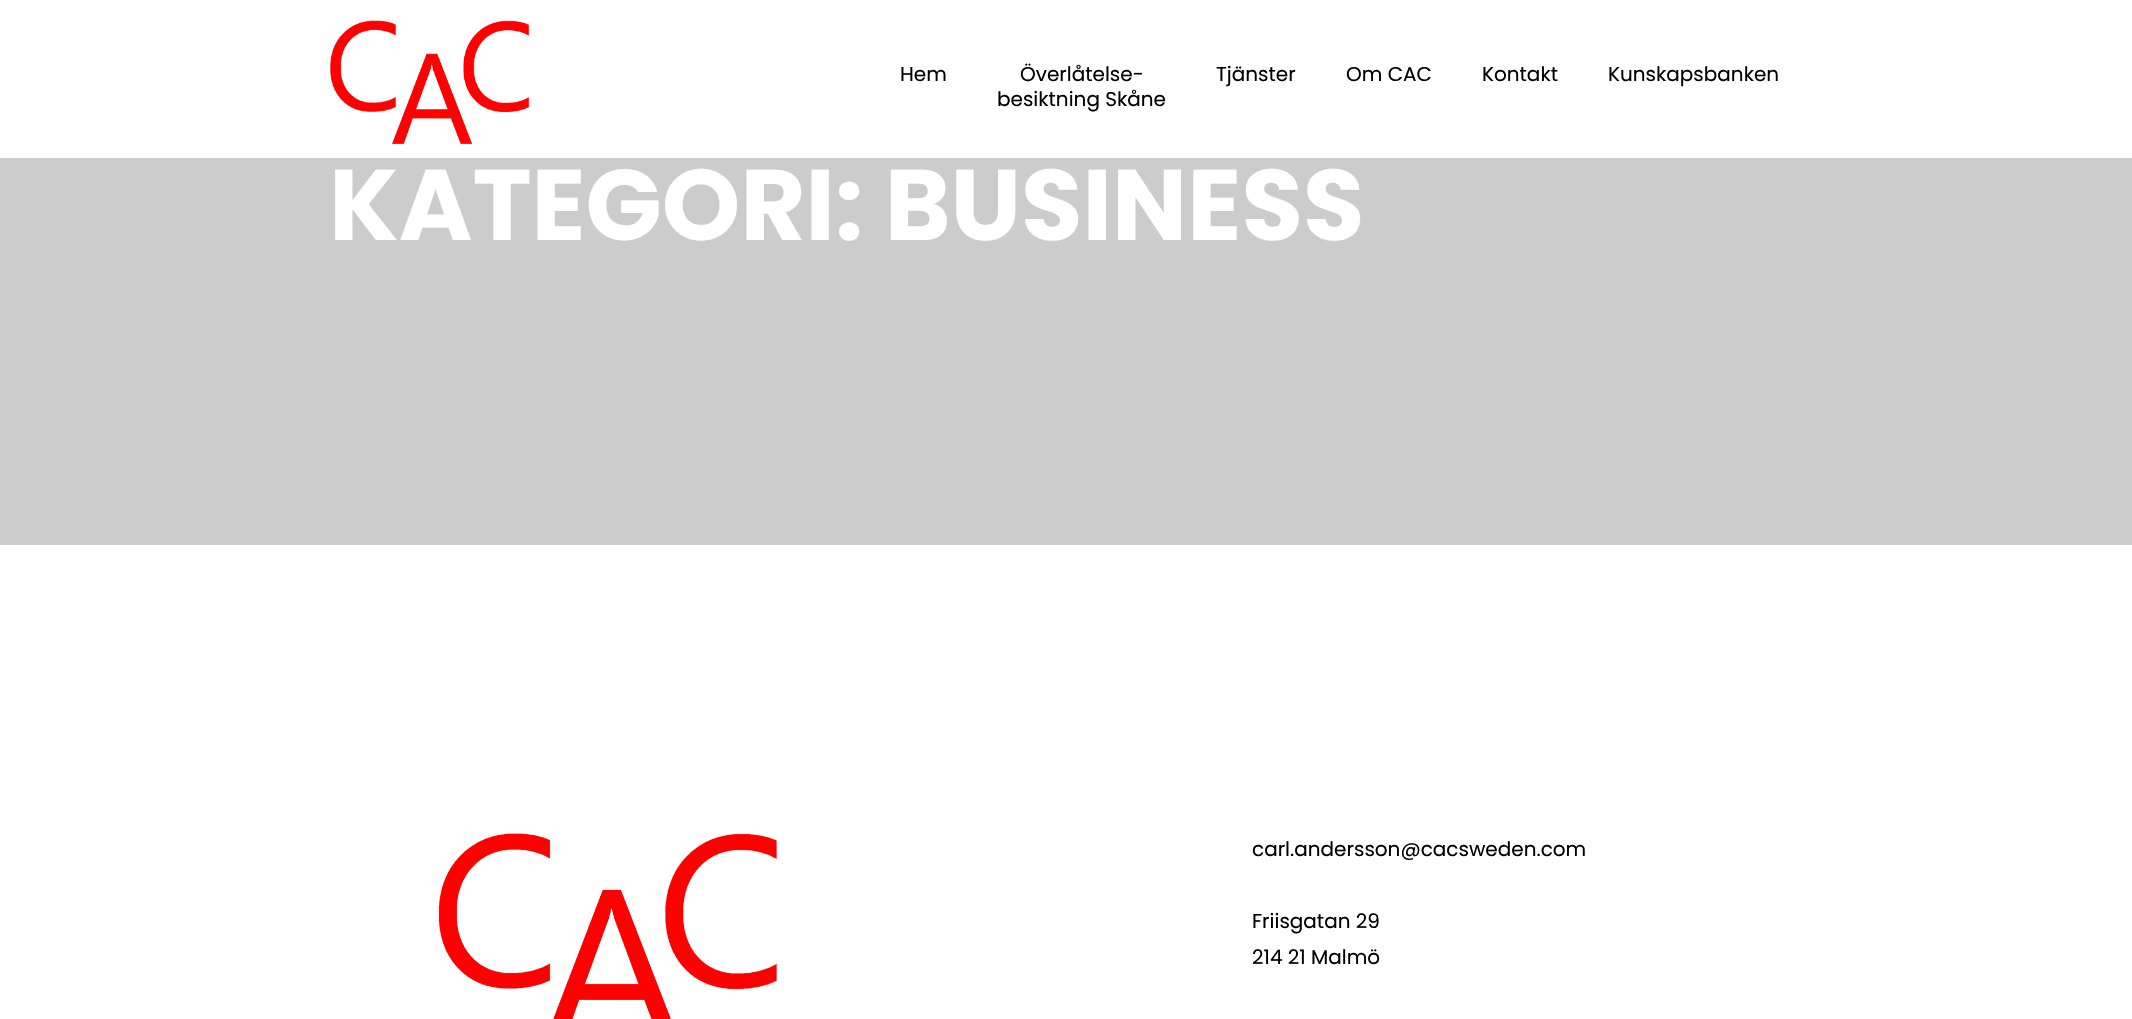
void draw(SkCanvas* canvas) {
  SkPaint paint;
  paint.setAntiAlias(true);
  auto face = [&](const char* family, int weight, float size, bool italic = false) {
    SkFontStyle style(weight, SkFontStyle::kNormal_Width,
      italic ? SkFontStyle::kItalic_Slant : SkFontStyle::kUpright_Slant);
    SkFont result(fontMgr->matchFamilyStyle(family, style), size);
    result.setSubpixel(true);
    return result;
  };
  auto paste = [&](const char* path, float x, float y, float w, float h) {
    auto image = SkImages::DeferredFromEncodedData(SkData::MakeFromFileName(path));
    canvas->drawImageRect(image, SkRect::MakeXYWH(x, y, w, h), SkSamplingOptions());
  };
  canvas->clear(0xffffffff);
  paste("img/1.png", 330, 20, 200, 125);
  paint.setColor(0xffcccccc);
  canvas->drawRect(SkRect::MakeXYWH(0, 158, 2132, 387), paint);
  paste("img/2.png", 438, 833, 339, 186);
  auto f0 = face("Poppins", 400, 20);
  paint.setColor(0xff000000);
  {
    const struct { const char* s; float x, y; } items[] = {
      {"Hem", 900, 81},
      {"Överlåtelse-", 1020, 81},
      {"besiktning Skåne", 997, 106},
      {"Tjänster", 1216, 81},
      {"Om CAC", 1346, 81},
      {"Kontakt", 1482, 81},
      {"Kunskapsbanken", 1608, 81},
    };
    for (auto [s, x, y] : items) {
      canvas->drawString(s, x, y, f0, paint);
    }
  }
  auto f1 = face("Poppins", 700, 100);
  paint.setColor(0xffffffff);
  canvas->drawString("KATEGORI: BUSINESS", 329, 240, f1, paint);
  paint.setColor(0xff000000);
  {
    const struct { const char* s; float x, y; } items[] = {
      {"carl.andersson@cacsweden.com", 1252, 856},
      {"Friisgatan 29", 1252, 928},
      {"214 21 Malmö", 1252, 964},
    };
    for (auto [s, x, y] : items) {
      canvas->drawString(s, x, y, f0, paint);
    }
  }
}
